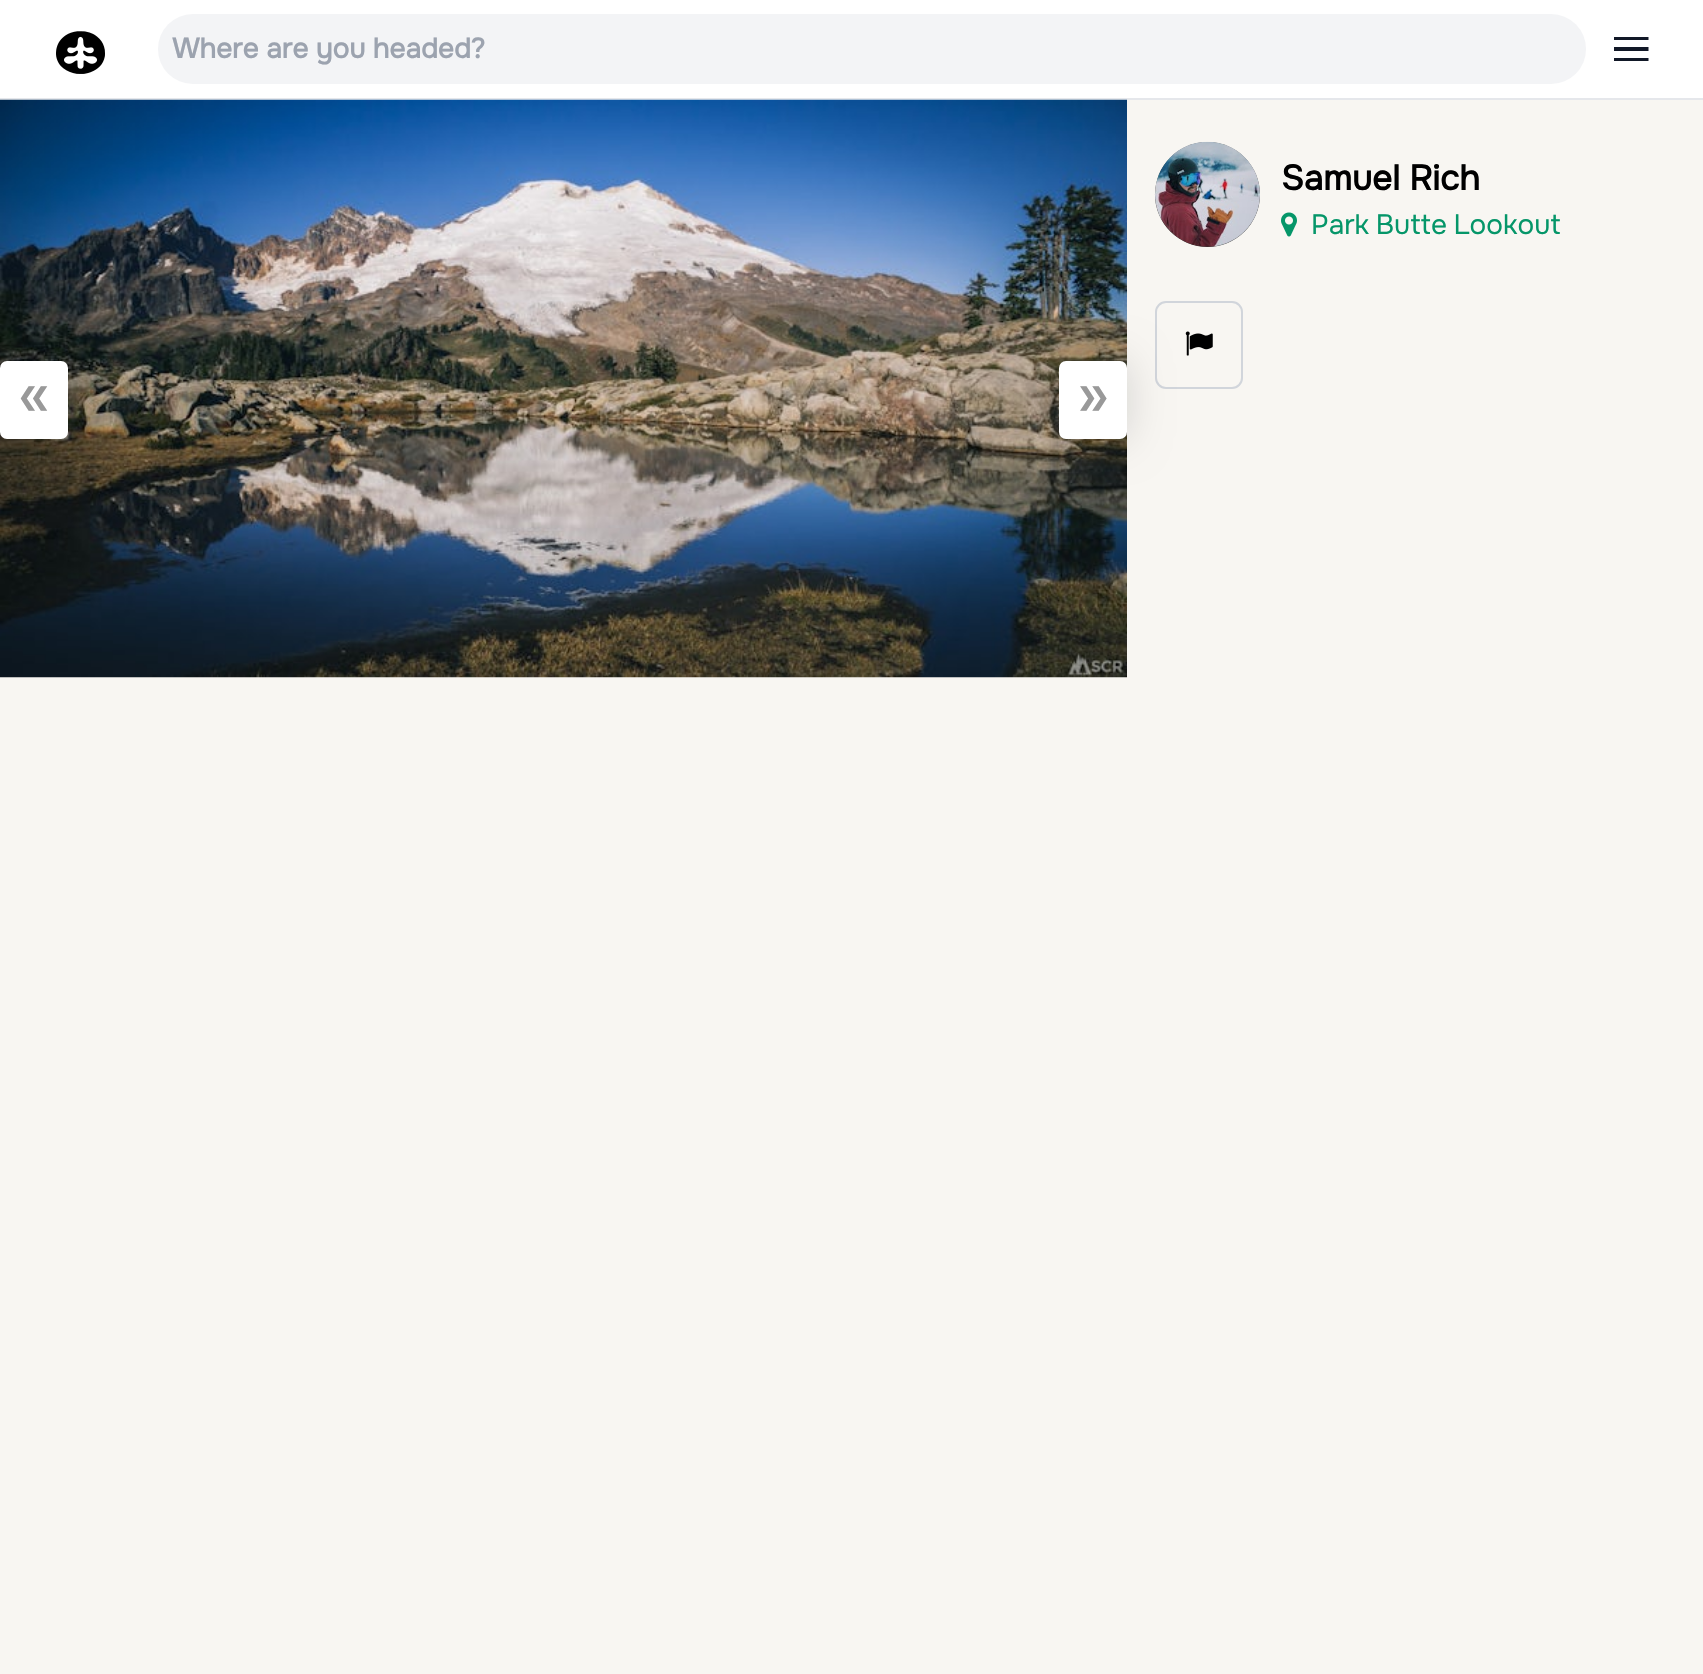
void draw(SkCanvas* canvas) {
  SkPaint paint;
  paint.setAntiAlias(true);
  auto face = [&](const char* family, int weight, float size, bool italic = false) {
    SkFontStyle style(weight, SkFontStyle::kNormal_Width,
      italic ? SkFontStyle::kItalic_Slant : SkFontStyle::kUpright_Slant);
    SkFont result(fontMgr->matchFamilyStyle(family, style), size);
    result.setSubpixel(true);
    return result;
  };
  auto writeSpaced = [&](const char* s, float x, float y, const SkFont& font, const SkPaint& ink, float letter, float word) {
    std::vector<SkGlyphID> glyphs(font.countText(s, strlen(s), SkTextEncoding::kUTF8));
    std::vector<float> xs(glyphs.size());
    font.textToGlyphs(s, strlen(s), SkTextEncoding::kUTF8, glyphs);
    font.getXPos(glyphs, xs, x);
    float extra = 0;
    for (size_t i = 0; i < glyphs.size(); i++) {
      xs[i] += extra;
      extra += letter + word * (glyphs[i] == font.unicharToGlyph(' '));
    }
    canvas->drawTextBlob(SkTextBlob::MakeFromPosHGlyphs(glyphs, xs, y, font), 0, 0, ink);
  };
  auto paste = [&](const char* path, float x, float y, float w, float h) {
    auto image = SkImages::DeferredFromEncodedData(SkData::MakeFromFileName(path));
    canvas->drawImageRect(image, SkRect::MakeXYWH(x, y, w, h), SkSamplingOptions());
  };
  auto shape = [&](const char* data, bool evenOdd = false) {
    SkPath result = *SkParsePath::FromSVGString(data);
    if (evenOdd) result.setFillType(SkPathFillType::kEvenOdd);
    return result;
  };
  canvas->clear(0xfff8f6f2);
  paint.setColor(0xffffffff);
  canvas->drawRect(SkRect::MakeXYWH(0, 0, 1703, 98), paint);
  paint.setColor(0xffe5e7eb);
  canvas->drawRect(SkRect::MakeXYWH(0, 98, 1703, 2), paint);
  paste("img/1.png", 56, 31, 49, 43);
  paint.setColor(0xfff3f4f6);
  canvas->drawRoundRect(SkRect::MakeXYWH(158, 14, 1428, 70), 35, 35, paint);
  canvas->save();
  canvas->clipRect(SkRect::MakeXYWH(1614, 32, 35, 35));
  paint.setColor(0xff111827);
  canvas->drawPath(shape("M1613.5 37H1648.5V40H1613.5ZM1613.5 47H1648.5V51H1613.5ZM1613.5 58H1648.5V61H1613.5Z"), paint);
  canvas->restore();
  paint.setColor(0xff333333);
  canvas->drawCircle(1207.5f, 194.5f, 52.5f, paint);
  paste("img/2.png", 1155, 141, 105, 106);
  paste("img/3.png", 1281, 212, 16, 25);
  paint.setStroke(true);
  paint.setStrokeWidth(2);
  paint.setColor(0xffd1d5db);
  canvas->drawRoundRect(SkRect::MakeXYWH(1156, 302, 86, 86), 10, 10, paint);
  paste("img/4.png", 1185, 331, 28, 25);
  paste("img/5.png", 0, 99, 1127, 579);
  paint.setStroke(false);
  paint.setColor(0x26000000);
  paint.setMaskFilter(SkMaskFilter::MakeBlur(kNormal_SkBlurStyle, 21));
  canvas->drawRoundRect(SkRect::MakeXYWH(0, 361, 68, 78), 7, 7, paint);
  paint.setMaskFilter(nullptr);
  paint.setColor(0xffffffff);
  canvas->drawRoundRect(SkRect::MakeXYWH(0, 361, 68, 78), 7, 7, paint);
  paint.setColor(0x26000000);
  paint.setMaskFilter(SkMaskFilter::MakeBlur(kNormal_SkBlurStyle, 21));
  canvas->drawRoundRect(SkRect::MakeXYWH(1059, 361, 68, 78), 7, 7, paint);
  paint.setMaskFilter(nullptr);
  paint.setColor(0xffffffff);
  canvas->drawRoundRect(SkRect::MakeXYWH(1059, 361, 68, 78), 7, 7, paint);
  auto f0 = face("Onest", 700, 28);
  paint.setColor(0xff9ca3af);
  canvas->drawString("Where are you headed?", 172, 58, f0, paint);
  auto f1 = face("Onest", 700, 35);
  paint.setColor(0xff000000);
  canvas->drawString("Samuel Rich", 1281, 190, f1, paint);
  auto f2 = face("Onest", 400, 28);
  paint.setColor(0xff059669);
  writeSpaced("Park Butte Lookout", 1311, 234, f2, paint, 0, -1);
  auto f3 = face("Onest", 400, 70);
  paint.setColor(0xff999999);
  canvas->drawString("«", 18, 417, f3, paint);
  canvas->drawString("»", 1076, 417, f3, paint);
}
